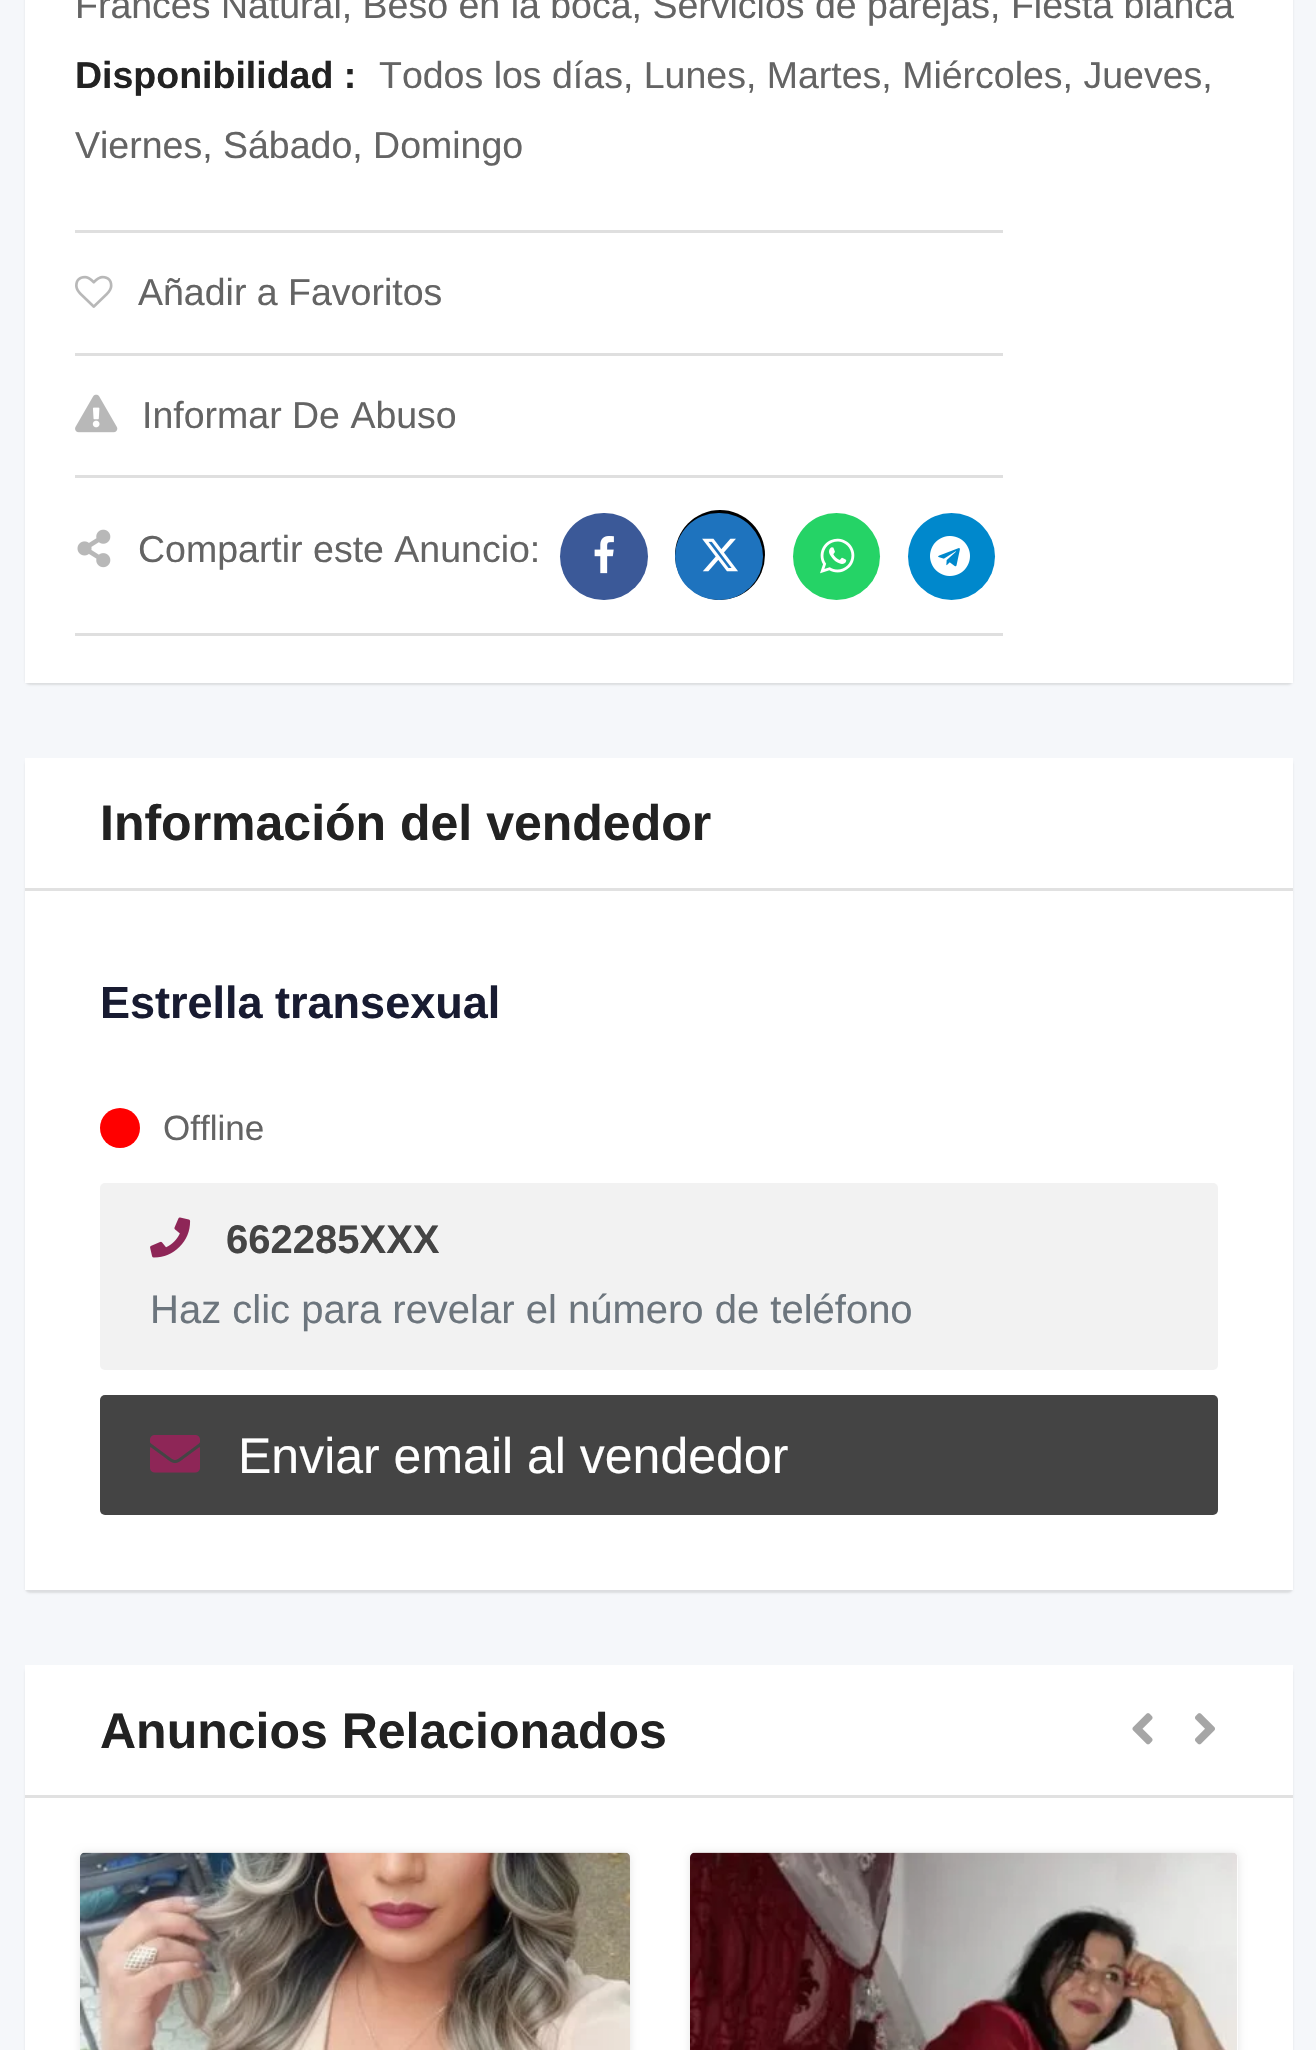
void draw(SkCanvas* canvas) {
  SkPaint paint;
  paint.setAntiAlias(true);
  auto face = [&](const char* family, int weight, float size, bool italic = false) {
    SkFontStyle style(weight, SkFontStyle::kNormal_Width,
      italic ? SkFontStyle::kItalic_Slant : SkFontStyle::kUpright_Slant);
    SkFont result(fontMgr->matchFamilyStyle(family, style), size);
    result.setSubpixel(true);
    return result;
  };
  auto paste = [&](const char* path, float x, float y, float w, float h) {
    auto image = SkImages::DeferredFromEncodedData(SkData::MakeFromFileName(path));
    canvas->drawImageRect(image, SkRect::MakeXYWH(x, y, w, h), SkSamplingOptions());
  };
  canvas->clear(0xfff5f7fa);
  paint.setColor(0x1a000000);
  paint.setMaskFilter(SkMaskFilter::MakeBlur(kNormal_SkBlurStyle, 1));
  canvas->drawRoundRect(SkRect::MakeXYWH(25, -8, 1268, 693), 5, 5, paint);
  paint.setMaskFilter(nullptr);
  paint.setColor(0xffffffff);
  canvas->drawRect(SkRect::MakeXYWH(25, 0, 1268, 683), paint);
  paint.setColor(0xffdfdfdf);
  canvas->drawRect(SkRect::MakeXYWH(75, 230, 928, 3), paint);
  paste("img/1.png", 75, 275, 38, 33);
  canvas->drawRect(SkRect::MakeXYWH(75, 353, 928, 3), paint);
  paste("img/2.png", 75, 394, 43, 39);
  canvas->drawRect(SkRect::MakeXYWH(75, 475, 928, 3), paint);
  canvas->drawRect(SkRect::MakeXYWH(75, 633, 928, 3), paint);
  paste("img/3.png", 77, 529, 34, 39);
  paint.setColor(0xff3b5998);
  canvas->drawRoundRect(SkRect::MakeXYWH(560, 513, 88, 87), 43.5f, 43.5f, paint);
  paste("img/4.png", 594, 536, 20, 38);
  paint.setColor(0xff000000);
  canvas->drawCircle(720, 555, 45, paint);
  paint.setColor(0xff1e73be);
  canvas->drawRoundRect(SkRect::MakeXYWH(675, 513, 88, 87), 43.5f, 43.5f, paint);
  paste("img/5.png", 702, 538, 36, 34);
  paint.setColor(0xff25d366);
  canvas->drawCircle(836.5f, 556.5f, 43.5f, paint);
  paste("img/6.png", 820, 538, 35, 36);
  paint.setColor(0xff0088cc);
  canvas->drawCircle(951.5f, 556.5f, 43.5f, paint);
  paste("img/7.png", 930, 536, 40, 40);
  paint.setColor(0x1a000000);
  paint.setMaskFilter(SkMaskFilter::MakeBlur(kNormal_SkBlurStyle, 1));
  canvas->drawRoundRect(SkRect::MakeXYWH(25, 760, 1268, 833), 5, 5, paint);
  paint.setMaskFilter(nullptr);
  {
    const struct { float x, y, w, h; SkColor color; } items[] = {
      {25, 758, 1268, 130, 0xffffffff},
      {25, 888, 1268, 3, 0xffe1e1e1},
      {25, 891, 1268, 699, 0xffffffff},
    };
    for (auto [x, y, w, h, color] : items) {
      paint.setColor(color);
      canvas->drawRect(SkRect::MakeXYWH(x, y, w, h), paint);
    }
  }
  paint.setColor(0xffff0000);
  canvas->drawCircle(120, 1128, 20, paint);
  paint.setColor(0xfff2f2f2);
  canvas->drawRoundRect(SkRect::MakeXYWH(100, 1183, 1118, 187), 5, 5, paint);
  paste("img/8.png", 150, 1217, 41, 41);
  paint.setColor(0xff444444);
  canvas->drawRoundRect(SkRect::MakeXYWH(100, 1395, 1118, 120), 5, 5, paint);
  paste("img/9.png", 150, 1435, 50, 38);
  paint.setColor(0x1a000000);
  paint.setMaskFilter(SkMaskFilter::MakeBlur(kNormal_SkBlurStyle, 1));
  canvas->drawRoundRect(SkRect::MakeXYWH(25, 1668, 1268, 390), 5, 5, paint);
  paint.setMaskFilter(nullptr);
  paint.setColor(0xffffffff);
  canvas->drawRect(SkRect::MakeXYWH(25, 1665, 1268, 130), paint);
  paint.setColor(0xffe1e1e1);
  canvas->drawRect(SkRect::MakeXYWH(25, 1795, 1268, 3), paint);
  paste("img/10.png", 1132, 1713, 21, 32);
  paste("img/11.png", 1195, 1713, 20, 32);
  paint.setColor(0xffffffff);
  canvas->drawRect(SkRect::MakeXYWH(25, 1798, 1268, 252), paint);
  paint.setColor(0x1a000000);
  paint.setMaskFilter(SkMaskFilter::MakeBlur(kNormal_SkBlurStyle, 4));
  canvas->drawRoundRect(SkRect::MakeXYWH(80, 1853, 550, 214), 5, 5, paint);
  paint.setMaskFilter(nullptr);
  paste("img/12.png", 80, 1852, 550, 198);
  paint.setMaskFilter(SkMaskFilter::MakeBlur(kNormal_SkBlurStyle, 4));
  canvas->drawRoundRect(SkRect::MakeXYWH(690, 1853, 548, 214), 5, 5, paint);
  paint.setMaskFilter(nullptr);
  paint.setColor(0xffffffff);
  canvas->drawRoundRect(SkRect::MakeXYWH(690, 1853, 548, 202), 5, 5, paint);
  paste("img/13.png", 690, 1852, 548, 198);
  auto f0 = face("Liberation Sans", 400, 37.5f);
  paint.setColor(0xff646464);
  canvas->drawString("Francés Natural, Beso en la boca, Servicios de parejas, Fiesta blanca", 75, 18, f0, paint);
  auto f1 = face("Liberation Sans", 700, 37.5f);
  paint.setColor(0xff222222);
  canvas->drawString("Disponibilidad :", 75, 88, f1, paint);
  paint.setColor(0xff646464);
  {
    const struct { const char* s; float x, y; } items[] = {
      {"Todos los días, Lunes, Martes, Miércoles, Jueves,", 379, 88},
      {"Viernes, Sábado, Domingo", 75, 158},
      {"Añadir a Favoritos", 138, 305},
      {"Informar De Abuso", 142, 428},
      {"Compartir este Anuncio:", 138, 562},
    };
    for (auto [s, x, y] : items) {
      canvas->drawString(s, x, y, f0, paint);
    }
  }
  auto f2 = face("Liberation Sans", 700, 50);
  paint.setColor(0xff222222);
  canvas->drawString("Información del vendedor", 100, 840, f2, paint);
  auto f3 = face("Liberation Sans", 700, 45);
  paint.setColor(0xff181b31);
  canvas->drawString("Estrella transexual", 100, 1018, f3, paint);
  auto f4 = face("Liberation Sans", 400, 35);
  paint.setColor(0xff646464);
  canvas->drawString("Offline", 163, 1140, f4, paint);
  auto f5 = face("Liberation Sans", 700, 40);
  paint.setColor(0xff444444);
  canvas->drawString("662285XXX", 226, 1253, f5, paint);
  auto f6 = face("Liberation Sans", 400, 40);
  paint.setColor(0xff6c757d);
  canvas->drawString("Haz clic para revelar el número de teléfono", 150, 1323, f6, paint);
  auto f7 = face("Liberation Sans", 400, 50);
  paint.setColor(0xffffffff);
  canvas->drawString("Enviar email al vendedor", 238, 1473, f7, paint);
  paint.setColor(0xff222222);
  canvas->drawString("Anuncios Relacionados", 100, 1748, f2, paint);
}
